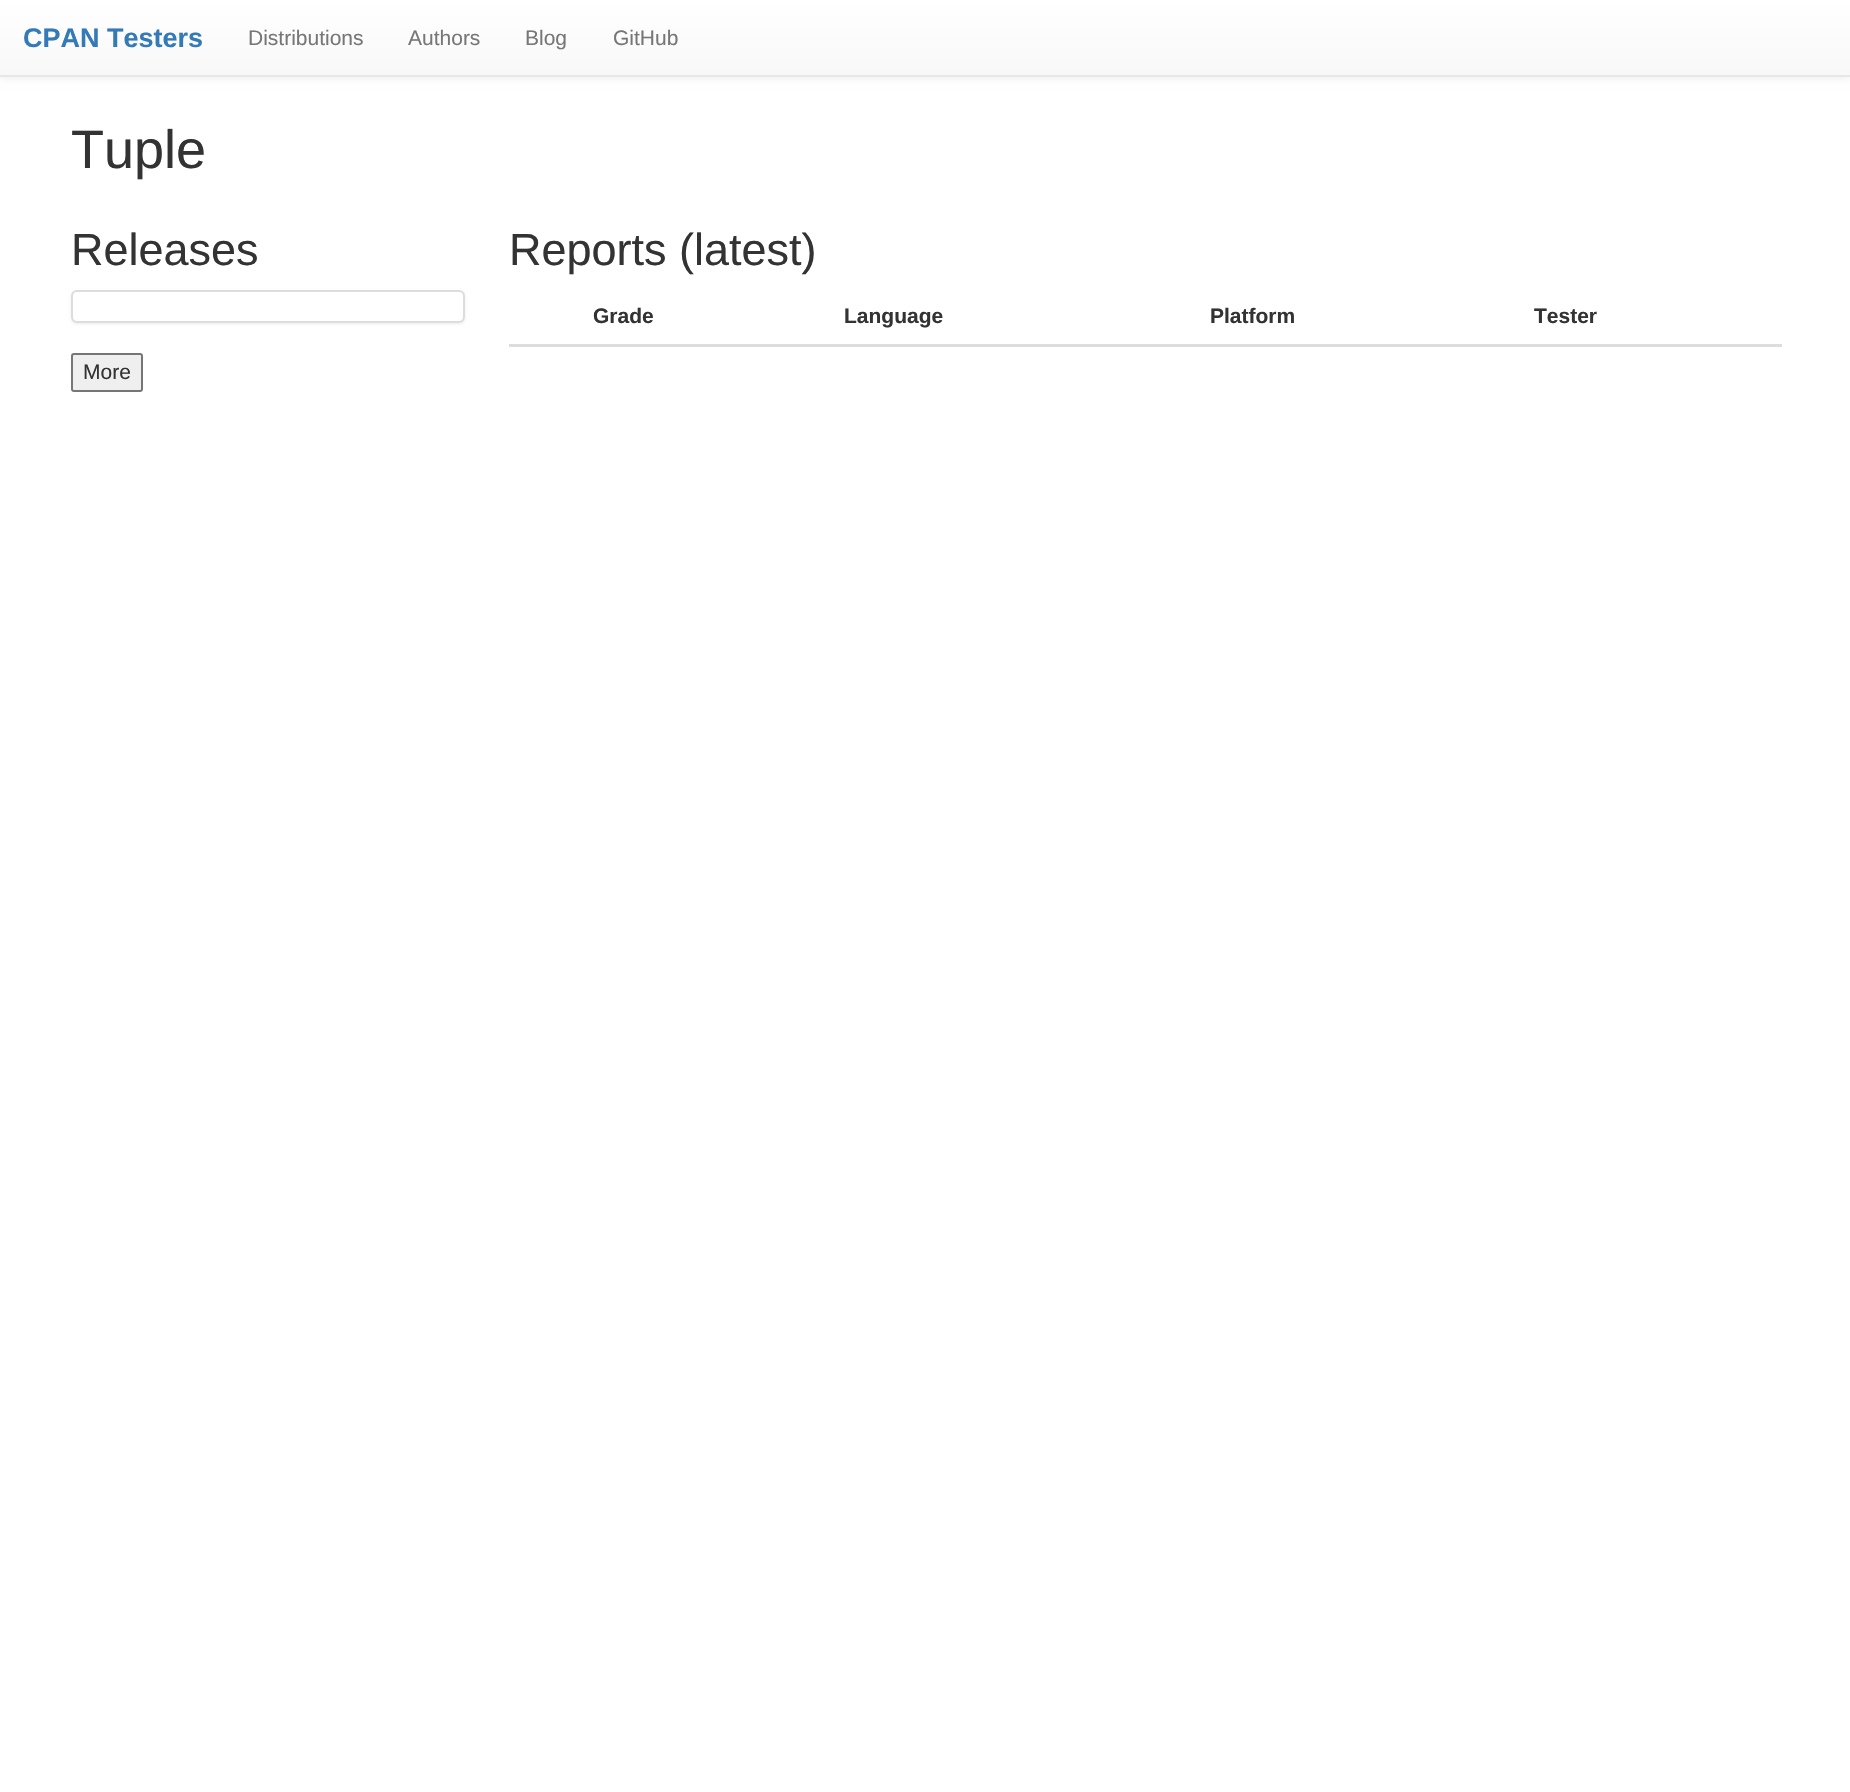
void draw(SkCanvas* canvas) {
  SkPaint paint;
  paint.setAntiAlias(true);
  auto face = [&](const char* family, int weight, float size, bool italic = false) {
    SkFontStyle style(weight, SkFontStyle::kNormal_Width,
      italic ? SkFontStyle::kItalic_Slant : SkFontStyle::kUpright_Slant);
    SkFont result(fontMgr->matchFamilyStyle(family, style), size);
    result.setSubpixel(true);
    return result;
  };
  canvas->clear(0xffffffff);
  paint.setColor(0x12000000);
  paint.setMaskFilter(SkMaskFilter::MakeBlur(kNormal_SkBlurStyle, 4));
  canvas->drawRect(SkRect::MakeXYWH(0, 2, 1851, 76), paint);
  paint.setMaskFilter(nullptr);
  {
    const SkColor colors[] = {0xffffffff, 0xfff8f8f8};
    const float stops[] = {0, 1};
    const SkPoint ends[] = {{926, 0}, {926, 75}};
    paint.setShader(SkGradientShader::MakeLinear(ends, colors, stops, 2, SkTileMode::kClamp));
    paint.setAlpha(255);
  }
  canvas->drawRect(SkRect::MakeXYWH(0, 0, 1850, 75), paint);
  paint.setShader(nullptr);
  paint.setColor(0xffe7e7e7);
  canvas->drawRect(SkRect::MakeXYWH(0, 75, 1850, 2), paint);
  paint.setColor(0x12000000);
  paint.setMaskFilter(SkMaskFilter::MakeBlur(kNormal_SkBlurStyle, 1.5f));
  canvas->drawRoundRect(SkRect::MakeXYWH(71, 291, 394, 33), 6, 6, paint);
  paint.setMaskFilter(nullptr);
  paint.setColor(0xffffffff);
  canvas->drawRoundRect(SkRect::MakeXYWH(72, 291, 392, 31), 5, 5, paint);
  paint.setStroke(true);
  paint.setStrokeWidth(2);
  paint.setColor(0xffdddddd);
  canvas->drawRoundRect(SkRect::MakeXYWH(72, 291, 392, 31), 5, 5, paint);
  paint.setStroke(false);
  paint.setColor(0xffefefef);
  canvas->drawRoundRect(SkRect::MakeXYWH(72, 354, 70, 37), 2, 2, paint);
  paint.setStroke(true);
  paint.setColor(0xff767676);
  canvas->drawRoundRect(SkRect::MakeXYWH(72, 354, 70, 37), 2, 2, paint);
  paint.setStroke(false);
  paint.setColor(0xffdddddd);
  canvas->drawRect(SkRect::MakeXYWH(509, 344, 1273, 3), paint);
  auto f0 = face("Liberation Sans", 700, 27);
  paint.setColor(0xff337ab7);
  canvas->drawString("CPAN Testers", 23, 47, f0, paint);
  auto f1 = face("Liberation Sans", 400, 21);
  paint.setColor(0xff777777);
  {
    const struct { const char* s; float x, y; } items[] = {
      {"Distributions", 248, 45},
      {"Authors", 408, 45},
      {"Blog", 525, 45},
      {"GitHub", 613, 45},
    };
    for (auto [s, x, y] : items) {
      canvas->drawString(s, x, y, f1, paint);
    }
  }
  auto f2 = face("Liberation Sans", 400, 54);
  paint.setColor(0xff333333);
  canvas->drawString("Tuple", 71, 168, f2, paint);
  auto f3 = face("Liberation Sans", 400, 45);
  canvas->drawString("Releases", 71, 265, f3, paint);
  canvas->drawString("More", 83, 379, f1, paint);
  canvas->drawString("Reports (latest)", 509, 265, f3, paint);
  auto f4 = face("Liberation Sans", 700, 21);
  {
    const struct { const char* s; float x, y; } items[] = {
      {"Grade", 593, 323},
      {"Language", 844, 323},
      {"Platform", 1210, 323},
      {"Tester", 1534, 323},
    };
    for (auto [s, x, y] : items) {
      canvas->drawString(s, x, y, f4, paint);
    }
  }
}
